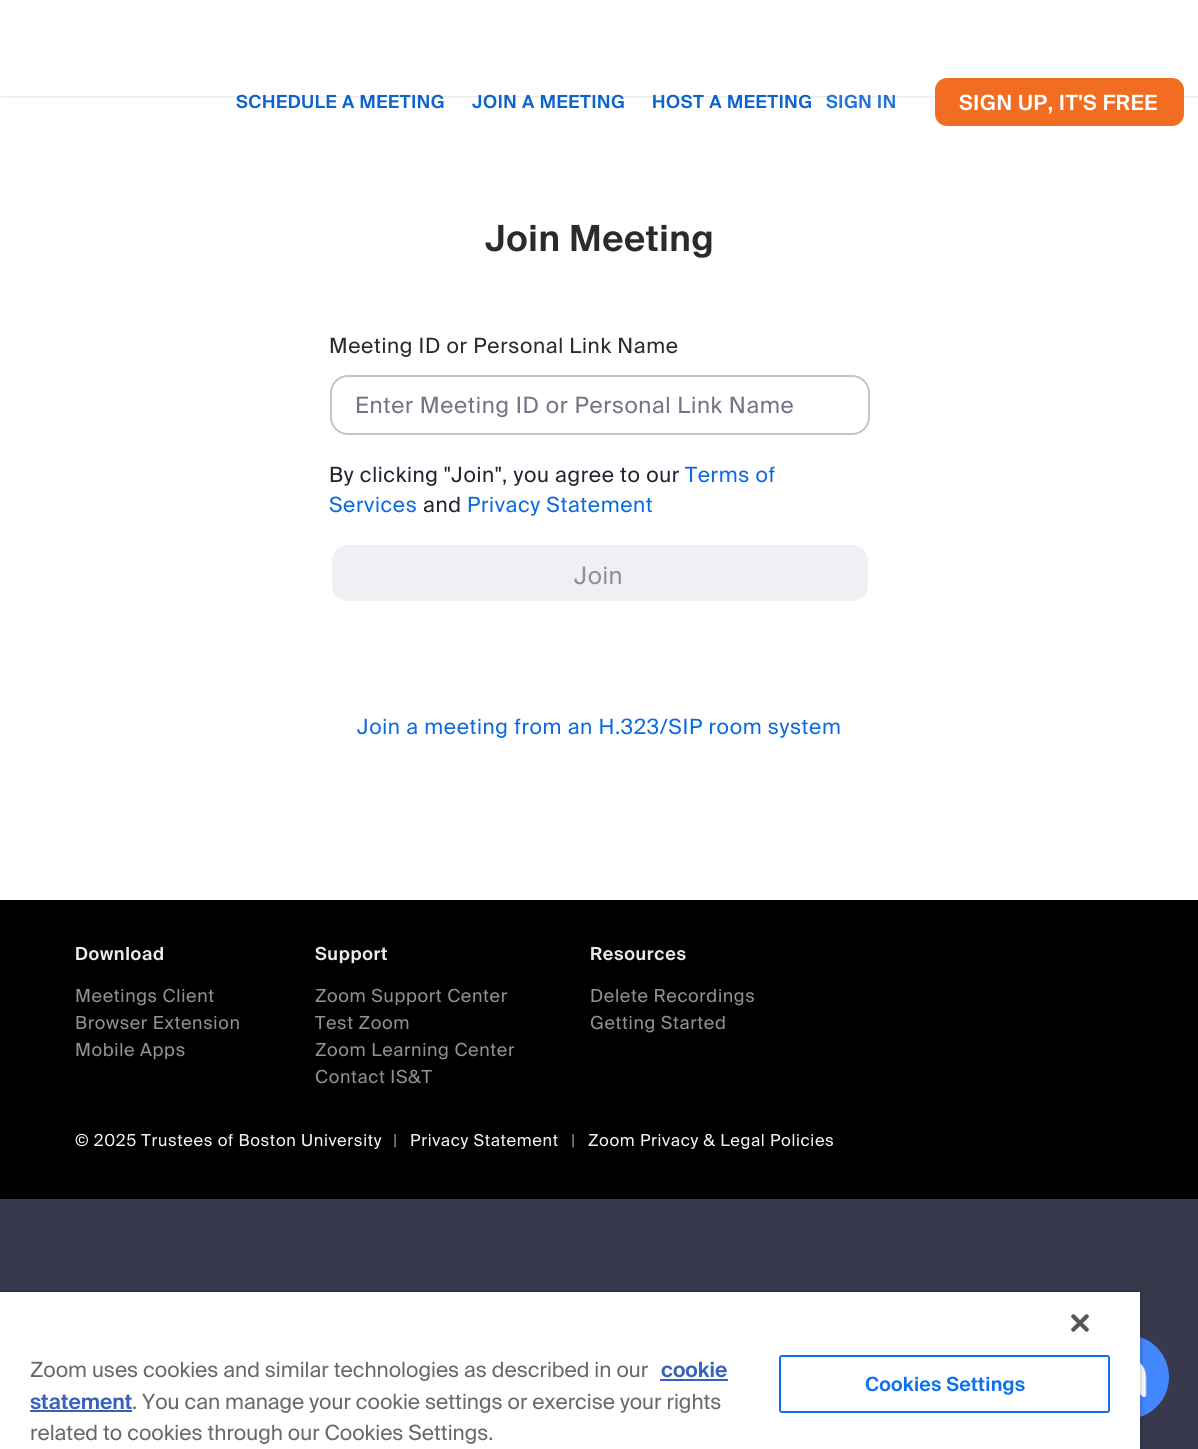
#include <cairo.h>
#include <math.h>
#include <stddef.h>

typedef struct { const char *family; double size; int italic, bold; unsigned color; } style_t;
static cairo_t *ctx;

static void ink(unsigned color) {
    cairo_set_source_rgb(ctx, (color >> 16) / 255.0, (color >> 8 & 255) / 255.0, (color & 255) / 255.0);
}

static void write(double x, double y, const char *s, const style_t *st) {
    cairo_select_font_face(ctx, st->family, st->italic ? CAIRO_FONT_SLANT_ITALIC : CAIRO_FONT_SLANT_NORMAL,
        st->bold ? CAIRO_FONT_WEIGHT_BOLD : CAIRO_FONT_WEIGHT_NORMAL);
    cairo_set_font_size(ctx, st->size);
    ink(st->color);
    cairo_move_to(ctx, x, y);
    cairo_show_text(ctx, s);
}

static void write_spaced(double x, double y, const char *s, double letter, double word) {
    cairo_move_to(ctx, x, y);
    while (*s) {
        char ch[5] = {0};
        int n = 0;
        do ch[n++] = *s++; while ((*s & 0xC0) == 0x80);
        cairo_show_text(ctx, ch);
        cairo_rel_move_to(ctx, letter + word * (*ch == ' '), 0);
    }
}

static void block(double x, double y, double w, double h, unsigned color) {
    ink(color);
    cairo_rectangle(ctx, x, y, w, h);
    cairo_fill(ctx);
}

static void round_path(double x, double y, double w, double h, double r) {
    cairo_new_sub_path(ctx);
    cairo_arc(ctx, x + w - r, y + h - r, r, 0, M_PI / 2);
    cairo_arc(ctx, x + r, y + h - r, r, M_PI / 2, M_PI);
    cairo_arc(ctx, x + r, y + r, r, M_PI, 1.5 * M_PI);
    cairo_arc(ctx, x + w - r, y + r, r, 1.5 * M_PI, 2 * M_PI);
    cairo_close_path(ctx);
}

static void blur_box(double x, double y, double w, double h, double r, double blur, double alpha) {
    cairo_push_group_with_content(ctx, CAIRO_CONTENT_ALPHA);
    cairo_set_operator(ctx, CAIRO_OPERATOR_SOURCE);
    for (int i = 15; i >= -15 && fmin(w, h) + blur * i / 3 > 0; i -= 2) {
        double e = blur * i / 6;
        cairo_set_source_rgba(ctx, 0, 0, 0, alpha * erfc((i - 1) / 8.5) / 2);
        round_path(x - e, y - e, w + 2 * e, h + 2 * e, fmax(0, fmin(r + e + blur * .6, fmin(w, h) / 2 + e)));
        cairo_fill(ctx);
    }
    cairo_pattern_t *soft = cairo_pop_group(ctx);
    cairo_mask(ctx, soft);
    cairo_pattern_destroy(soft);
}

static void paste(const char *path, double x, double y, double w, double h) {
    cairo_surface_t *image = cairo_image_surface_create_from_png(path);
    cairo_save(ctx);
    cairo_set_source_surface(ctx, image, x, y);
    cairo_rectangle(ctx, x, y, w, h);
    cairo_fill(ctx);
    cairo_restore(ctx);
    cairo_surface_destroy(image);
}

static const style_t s1 = {"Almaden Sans", 21, 0, 0, 0x696969};
static const style_t s2 = {"Almaden Sans SemiBold", 21, 0, 0, 0x3860be};

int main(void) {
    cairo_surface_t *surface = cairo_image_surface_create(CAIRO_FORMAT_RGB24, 1198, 1449);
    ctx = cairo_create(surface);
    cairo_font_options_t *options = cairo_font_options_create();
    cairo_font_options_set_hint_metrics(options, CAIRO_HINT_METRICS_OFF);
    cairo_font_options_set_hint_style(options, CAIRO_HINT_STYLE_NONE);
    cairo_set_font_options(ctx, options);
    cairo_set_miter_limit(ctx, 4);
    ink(0x39394d);
    cairo_paint(ctx);
    block(0, 0, 1198, 900, 0xffffff);
    cairo_save(ctx);
    cairo_rectangle(ctx, 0, 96, 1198, 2);
    cairo_clip(ctx);
    ink(0x000000);
    blur_box(0, 0, 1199, 96, 0, 1.5, 0.2);
    cairo_restore(ctx);
    cairo_select_font_face(ctx, "Almaden Sans SemiBold", CAIRO_FONT_SLANT_NORMAL, CAIRO_FONT_WEIGHT_NORMAL);
    cairo_set_font_size(ctx, 18);
    ink(0x0c63ce);
    write_spaced(236, 108, "SCHEDULE A MEETING", 0.65, 0);
    write_spaced(472, 108, "JOIN A MEETING", 0.65, 0);
    write_spaced(652, 108, "HOST A MEETING", 0.65, 0);
    ink(0x2073d9);
    write_spaced(826, 108, "SIGN IN", 0.65, 0);
    ink(0xf26d21);
    round_path(936, 79, 247, 46, 11);
    cairo_fill_preserve(ctx);
    cairo_stroke(ctx);
    cairo_set_font_size(ctx, 21);
    ink(0xffffff);
    write_spaced(959, 110, "SIGN UP, IT'S FREE", 0.65, 0);
    cairo_set_font_size(ctx, 36);
    ink(0x2a2b2d);
    write_spaced(485, 251, "Join Meeting", 0.65, 0);
    cairo_select_font_face(ctx, "Almaden Sans", CAIRO_FONT_SLANT_NORMAL, CAIRO_FONT_WEIGHT_NORMAL);
    cairo_set_font_size(ctx, 21);
    write_spaced(329, 353, "Meeting ID or Personal Link Name", 0.65, 0);
    round_path(331, 376, 538, 58, 17);
    ink(0xc1c6ce);
    cairo_stroke(ctx);
    cairo_set_font_size(ctx, 22.5);
    ink(0x747487);
    write_spaced(355, 413, "Enter Meeting ID or Personal Link Name", 0.7, 0);
    cairo_set_font_size(ctx, 21);
    ink(0x232333);
    write_spaced(329, 482, "By clicking \"Join\", you agree to our", 0.65, 0);
    ink(0x0d6bde);
    write_spaced(685, 482, "Terms of", 0.65, 0);
    write_spaced(329, 512, "Services", 0.65, 0);
    ink(0x232333);
    write_spaced(423, 512, "and", 0.65, 0);
    ink(0x0d6bde);
    write_spaced(467, 512, "Privacy Statement", 0.65, 0);
    ink(0xefeff4);
    round_path(331, 544, 538, 58, 17);
    cairo_fill_preserve(ctx);
    ink(0xffffff);
    cairo_stroke(ctx);
    cairo_set_font_size(ctx, 24);
    ink(0x919191);
    write_spaced(574, 584, "Join", 0.5, 0);
    cairo_set_font_size(ctx, 21);
    ink(0x0d6bde);
    write_spaced(357, 734, "Join a meeting from an H.323/SIP room system", 0.65, 0);
    block(0, 900, 1198, 299, 0x000000);
    cairo_select_font_face(ctx, "Almaden Sans SemiBold", CAIRO_FONT_SLANT_NORMAL, CAIRO_FONT_WEIGHT_NORMAL);
    cairo_set_font_size(ctx, 18);
    ink(0xeaeaea);
    write_spaced(75, 960, "Download", 0.65, 0);
    cairo_select_font_face(ctx, "Almaden Sans", CAIRO_FONT_SLANT_NORMAL, CAIRO_FONT_WEIGHT_NORMAL);
    ink(0x919191);
    write_spaced(75, 1002, "Meetings Client", 0.65, 0);
    write_spaced(75, 1029, "Browser Extension", 0.65, 0);
    write_spaced(75, 1056, "Mobile Apps", 0.65, 0);
    cairo_select_font_face(ctx, "Almaden Sans SemiBold", CAIRO_FONT_SLANT_NORMAL, CAIRO_FONT_WEIGHT_NORMAL);
    ink(0xeaeaea);
    write_spaced(315, 960, "Support", 0.65, 0);
    cairo_select_font_face(ctx, "Almaden Sans", CAIRO_FONT_SLANT_NORMAL, CAIRO_FONT_WEIGHT_NORMAL);
    ink(0x919191);
    write_spaced(315, 1002, "Zoom Support Center", 0.65, 0);
    write_spaced(315, 1029, "Test Zoom", 0.65, 0);
    write_spaced(315, 1056, "Zoom Learning Center", 0.65, 0);
    write_spaced(315, 1083, "Contact IS&T", 0.65, 0);
    cairo_select_font_face(ctx, "Almaden Sans SemiBold", CAIRO_FONT_SLANT_NORMAL, CAIRO_FONT_WEIGHT_NORMAL);
    ink(0xeaeaea);
    write_spaced(590, 960, "Resources", 0.65, 0);
    cairo_select_font_face(ctx, "Almaden Sans", CAIRO_FONT_SLANT_NORMAL, CAIRO_FONT_WEIGHT_NORMAL);
    ink(0x919191);
    write_spaced(590, 1002, "Delete Recordings", 0.65, 0);
    write_spaced(590, 1029, "Getting Started", 0.65, 0);
    cairo_set_font_size(ctx, 16.5);
    ink(0xf5f5f5);
    write_spaced(75, 1146, "© 2025 Trustees of Boston University", 0.65, 0);
    ink(0x919191);
    write_spaced(393, 1146, "|", 0.65, 0);
    ink(0xf5f5f5);
    write_spaced(410, 1146, "Privacy Statement", 0.65, 0);
    ink(0x919191);
    write_spaced(571, 1146, "|", 0.65, 0);
    ink(0xf5f5f5);
    write_spaced(588, 1146, "Zoom Privacy & Legal Policies", 0.65, 0);
    ink(0x4488ff);
    cairo_new_path(ctx);
    cairo_arc(ctx, 1127, 1377, 42, 0, 2 * M_PI);
    cairo_fill(ctx);
    paste("pic2.png", 1140, 1362, 7, 36);
    ink(0x000000);
    blur_box(0, 1292, 1140, 157, 0, 3, 0.35);
    block(0, 1292, 1140, 157, 0xffffff);
    paste("pic1.png", 1071, 1314, 18, 18);
    write(30, 1377, "Zoom uses cookies and similar technologies as described in our", &s1);
    write(661, 1377, "cookie", &s2);
    block(660, 1379, 68, 2, 0x3860be);
    write(30, 1409, "statement", &s2);
    block(30, 1410, 102, 2, 0x3860be);
    write(132, 1409, ". You can manage your cookie settings or exercise your rights", &s1);
    write(30, 1440, "related to cookies through our Cookies Settings.", &s1);
    round_path(780, 1356, 329, 56, 2);
    ink(0x0e71eb);
    cairo_stroke(ctx);
    cairo_select_font_face(ctx, "Almaden Sans SemiBold", CAIRO_FONT_SLANT_NORMAL, CAIRO_FONT_WEIGHT_NORMAL);
    cairo_set_font_size(ctx, 19.5);
    write_spaced(865, 1391, "Cookies Settings", 0.25, 0);
    cairo_surface_write_to_png(surface, "screenshot.png");
    cairo_font_options_destroy(options);
    cairo_destroy(ctx);
    cairo_surface_destroy(surface);
    return 0;
}
